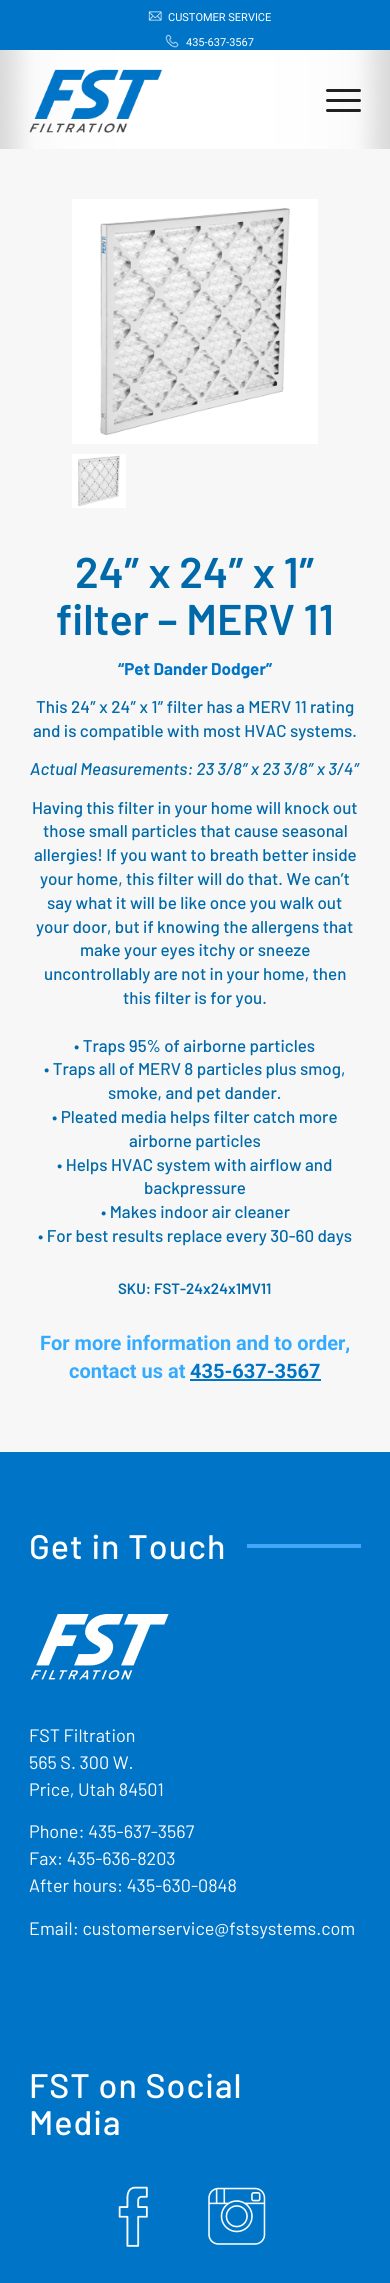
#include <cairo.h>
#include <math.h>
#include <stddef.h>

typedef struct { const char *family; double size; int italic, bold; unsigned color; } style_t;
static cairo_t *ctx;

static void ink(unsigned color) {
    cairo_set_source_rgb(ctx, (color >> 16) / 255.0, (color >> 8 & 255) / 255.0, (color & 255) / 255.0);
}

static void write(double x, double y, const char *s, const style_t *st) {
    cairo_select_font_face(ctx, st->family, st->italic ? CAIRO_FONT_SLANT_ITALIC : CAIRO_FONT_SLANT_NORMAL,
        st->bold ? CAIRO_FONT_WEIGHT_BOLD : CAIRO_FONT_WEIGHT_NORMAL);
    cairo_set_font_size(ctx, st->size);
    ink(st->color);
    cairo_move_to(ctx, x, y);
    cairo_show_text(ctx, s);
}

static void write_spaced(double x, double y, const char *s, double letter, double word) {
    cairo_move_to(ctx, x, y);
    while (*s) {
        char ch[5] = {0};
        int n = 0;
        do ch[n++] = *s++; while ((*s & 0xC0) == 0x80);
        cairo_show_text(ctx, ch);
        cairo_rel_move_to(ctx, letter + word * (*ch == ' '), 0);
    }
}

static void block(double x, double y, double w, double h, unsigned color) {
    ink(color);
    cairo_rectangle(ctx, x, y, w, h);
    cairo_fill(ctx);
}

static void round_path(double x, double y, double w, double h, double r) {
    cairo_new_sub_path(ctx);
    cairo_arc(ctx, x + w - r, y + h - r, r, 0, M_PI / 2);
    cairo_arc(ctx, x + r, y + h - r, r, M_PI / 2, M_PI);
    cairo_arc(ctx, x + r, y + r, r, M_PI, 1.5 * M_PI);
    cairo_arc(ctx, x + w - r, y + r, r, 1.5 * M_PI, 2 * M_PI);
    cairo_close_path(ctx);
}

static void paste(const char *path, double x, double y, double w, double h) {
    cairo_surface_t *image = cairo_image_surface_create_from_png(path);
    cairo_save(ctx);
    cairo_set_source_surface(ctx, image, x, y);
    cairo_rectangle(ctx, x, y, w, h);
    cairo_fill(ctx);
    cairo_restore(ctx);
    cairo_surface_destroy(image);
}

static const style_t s1 = {"Roboto", 11, 0, 0, 0xffffff};
static const style_t s2 = {"Barlow SemiBold", 43, 0, 0, 0x0069aa};
static const style_t s3 = {"Barlow", 17, 0, 1, 0x0074c7};
static const style_t s4 = {"Barlow Medium", 17, 0, 0, 0x0069aa};
static const style_t s5 = {"Barlow Medium", 17, 1, 0, 0x0069aa};
static const style_t s6 = {"Barlow SemiBold", 15, 0, 0, 0x0069aa};
static const style_t s7 = {"Roboto", 20, 0, 1, 0x36abfd};
static const style_t s8 = {"Roboto", 20, 0, 1, 0x0074c7};
static const style_t s9 = {"Barlow", 18, 0, 0, 0xffffff};

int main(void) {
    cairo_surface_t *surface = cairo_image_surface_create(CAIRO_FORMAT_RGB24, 390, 2283);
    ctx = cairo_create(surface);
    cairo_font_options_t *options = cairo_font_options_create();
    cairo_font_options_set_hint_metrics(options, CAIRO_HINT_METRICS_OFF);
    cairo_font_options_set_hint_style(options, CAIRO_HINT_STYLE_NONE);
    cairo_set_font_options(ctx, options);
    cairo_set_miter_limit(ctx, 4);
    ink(0x0074c7);
    cairo_paint(ctx);
    paste("pic1.png", 148, 11, 14, 10);
    write(168, 21, "CUSTOMER SERVICE", &s1);
    paste("pic2.png", 165, 34, 14, 14);
    write(186, 46, "435-637-3567", &s1);
    paste("pic3.png", 0, 50, 390, 99);
    paste("pic4.png", 29, 69, 133, 64);
    ink(0x212121);
    round_path(326, 99, 35, 3, 1.5);
    cairo_fill(ctx);
    round_path(326, 89, 35, 3, 1.5);
    cairo_fill(ctx);
    round_path(326, 109, 35, 3, 1.5);
    cairo_fill(ctx);
    block(0, 149, 390, 1303, 0xf7f7f7);
    block(72, 199, 246, 245, 0xffffff);
    paste("pic5.png", 100, 208, 190, 227);
    block(72, 454, 54, 54, 0xffffff);
    paste("pic6.png", 78, 455, 42, 52);
    write(75, 588, "24″ x 24″ x 1″", &s2);
    write(56, 635, "filter – MERV 11", &s2);
    write(118, 675, "“Pet Dander Dodger”", &s3);
    write(36, 713, "This 24″ x 24″ x 1″ filter has a MERV 11 rating", &s4);
    write(33, 737, "and is compatible with most HVAC systems.", &s4);
    write(30, 775, "Actual Measurements: 23 3/8″ x 23 3/8″ x 3/4″", &s5);
    write(32, 814, "Having this filter in your home will knock out", &s4);
    write(43, 837, "those small particles that cause seasonal", &s4);
    write(34, 861, "allergies! If you want to breath better inside", &s4);
    write(40, 885, "your home, this filter will do that. We can’t", &s4);
    write(47, 909, "say what it will be like once you walk out", &s4);
    write(36, 933, "your door, but if knowing the allergens that", &s4);
    write(80, 956, "make your eyes itchy or sneeze", &s4);
    write(44, 980, "uncontrollably are not in your home, then", &s4);
    write(123, 1004, "this filter is for you.", &s4);
    write(74, 1052, "• Traps 95% of airborne particles", &s4);
    write(44, 1075, "• Traps all of MERV 8 particles plus smog,", &s4);
    write(108, 1099, "smoke, and pet dander.", &s4);
    write(52, 1123, "• Pleated media helps filter catch more", &s4);
    write(129, 1147, "airborne particles", &s4);
    write(57, 1171, "• Helps HVAC system with airflow and", &s4);
    write(144, 1194, "backpressure", &s4);
    write(101, 1218, "• Makes indoor air cleaner", &s4);
    write(38, 1242, "• For best results replace every 30-60 days", &s4);
    write(118, 1294, "SKU: FST-24x24x1MV11", &s6);
    write(40, 1350, "For more information and to order,", &s7);
    write(69, 1378, "contact us at", &s7);
    write(190, 1378, "435-637-3567", &s8);
    block(190, 1379, 131, 2, 0x0074c7);
    cairo_select_font_face(ctx, "Barlow Medium", CAIRO_FONT_SLANT_NORMAL, CAIRO_FONT_WEIGHT_NORMAL);
    cairo_set_font_size(ctx, 34);
    ink(0xffffff);
    write_spaced(29, 1559, "Get in Touch", 1, 0);
    block(247, 1544, 114, 4, 0x43a7f7);
    paste("pic7.png", 31, 1614, 138, 66);
    write(29, 1742, "FST Filtration", &s9);
    write(29, 1769, "565 S. 300 W.", &s9);
    write(29, 1796, "Price, Utah 84501", &s9);
    write(29, 1838, "Phone: 435-637-3567", &s9);
    write(29, 1865, "Fax: 435-636-8203", &s9);
    write(29, 1892, "After hours: 435-630-0848", &s9);
    write(29, 1935, "Email: customerservice@fstsystems.com", &s9);
    cairo_select_font_face(ctx, "Barlow Medium", CAIRO_FONT_SLANT_NORMAL, CAIRO_FONT_WEIGHT_NORMAL);
    cairo_set_font_size(ctx, 34);
    write_spaced(29, 2098, "FST on Social", 1, 0);
    write_spaced(29, 2135, "Media", 1, 0);
    paste("pic8.png", 118, 2186, 30, 61);
    paste("pic9.png", 208, 2187, 58, 58);
    cairo_surface_write_to_png(surface, "screenshot.png");
    cairo_font_options_destroy(options);
    cairo_destroy(ctx);
    cairo_surface_destroy(surface);
    return 0;
}
